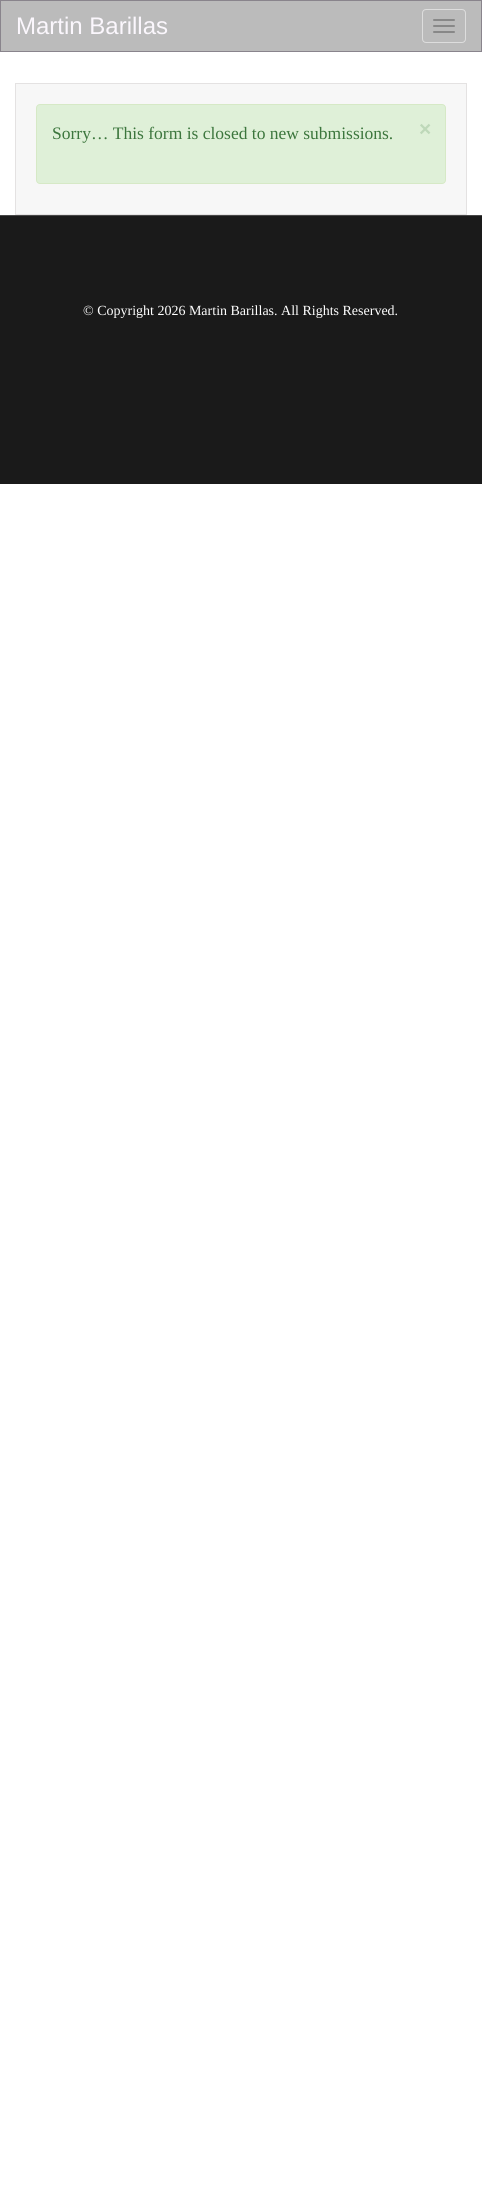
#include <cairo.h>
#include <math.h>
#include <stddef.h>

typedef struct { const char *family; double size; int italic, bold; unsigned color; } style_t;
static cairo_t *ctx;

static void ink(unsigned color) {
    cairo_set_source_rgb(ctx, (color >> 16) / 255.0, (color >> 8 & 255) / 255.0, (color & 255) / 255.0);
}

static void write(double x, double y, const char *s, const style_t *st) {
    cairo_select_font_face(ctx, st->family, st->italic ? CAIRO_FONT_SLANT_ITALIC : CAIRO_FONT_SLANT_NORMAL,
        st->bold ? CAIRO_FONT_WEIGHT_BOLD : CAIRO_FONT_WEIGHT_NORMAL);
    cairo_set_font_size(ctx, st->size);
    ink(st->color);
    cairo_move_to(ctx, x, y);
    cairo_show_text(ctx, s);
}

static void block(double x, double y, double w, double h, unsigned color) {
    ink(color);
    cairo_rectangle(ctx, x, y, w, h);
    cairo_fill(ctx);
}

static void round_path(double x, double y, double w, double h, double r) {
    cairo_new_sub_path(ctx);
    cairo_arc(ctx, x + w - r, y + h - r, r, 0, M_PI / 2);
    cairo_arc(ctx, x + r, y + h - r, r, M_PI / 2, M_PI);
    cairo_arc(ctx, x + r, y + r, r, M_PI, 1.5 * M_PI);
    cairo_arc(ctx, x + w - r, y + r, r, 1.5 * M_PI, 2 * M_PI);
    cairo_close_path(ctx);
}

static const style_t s1 = {"Liberation Sans", 24, 0, 0, 0xfbf7fd};
static const style_t s2 = {"Liberation Serif", 17.5, 0, 0, 0x3c763d};
static const style_t s3 = {"Liberation Sans", 21, 0, 1, 0xbed8b9};
static const style_t s4 = {"Liberation Serif", 14, 0, 0, 0xffffff};

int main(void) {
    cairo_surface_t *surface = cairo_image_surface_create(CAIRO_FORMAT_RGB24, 482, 2192);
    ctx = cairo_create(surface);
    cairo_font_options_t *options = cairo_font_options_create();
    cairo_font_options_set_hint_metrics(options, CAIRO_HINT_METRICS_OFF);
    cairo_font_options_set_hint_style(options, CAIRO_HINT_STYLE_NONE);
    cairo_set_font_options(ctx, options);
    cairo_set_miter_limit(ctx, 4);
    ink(0xffffff);
    cairo_paint(ctx);
    ink(0xbbbbbb);
    cairo_rectangle(ctx, 0.5, 0.5, 481, 51);
    cairo_fill_preserve(ctx);
    ink(0x89848c);
    cairo_set_line_width(ctx, 1);
    cairo_stroke(ctx);
    write(16, 34, "Martin Barillas", &s1);
    round_path(422.5, 9.5, 43, 33, 3.5);
    ink(0xdddddd);
    cairo_stroke(ctx);
    ink(0x888888);
    round_path(433, 19, 22, 2, 1);
    cairo_fill(ctx);
    round_path(433, 25, 22, 2, 1);
    cairo_fill(ctx);
    round_path(433, 31, 22, 2, 1);
    cairo_fill(ctx);
    ink(0xf7f7f7);
    cairo_rectangle(ctx, 15.5, 83.5, 451, 131);
    cairo_fill_preserve(ctx);
    ink(0xe4e2e2);
    cairo_stroke(ctx);
    ink(0xdff0d8);
    round_path(36.5, 104.5, 409, 79, 3.5);
    cairo_fill_preserve(ctx);
    ink(0xd6e9c6);
    cairo_stroke(ctx);
    write(52, 139, "Sorry… This form is closed to new submissions.", &s2);
    write(419, 136, "×", &s3);
    block(0, 216, 482, 268, 0x1a1a1a);
    block(0, 215, 482, 1, 0x474747);
    write(83, 315, "© Copyright 2026 Martin Barillas. All Rights Reserved.", &s4);
    cairo_surface_write_to_png(surface, "screenshot.png");
    cairo_font_options_destroy(options);
    cairo_destroy(ctx);
    cairo_surface_destroy(surface);
    return 0;
}
